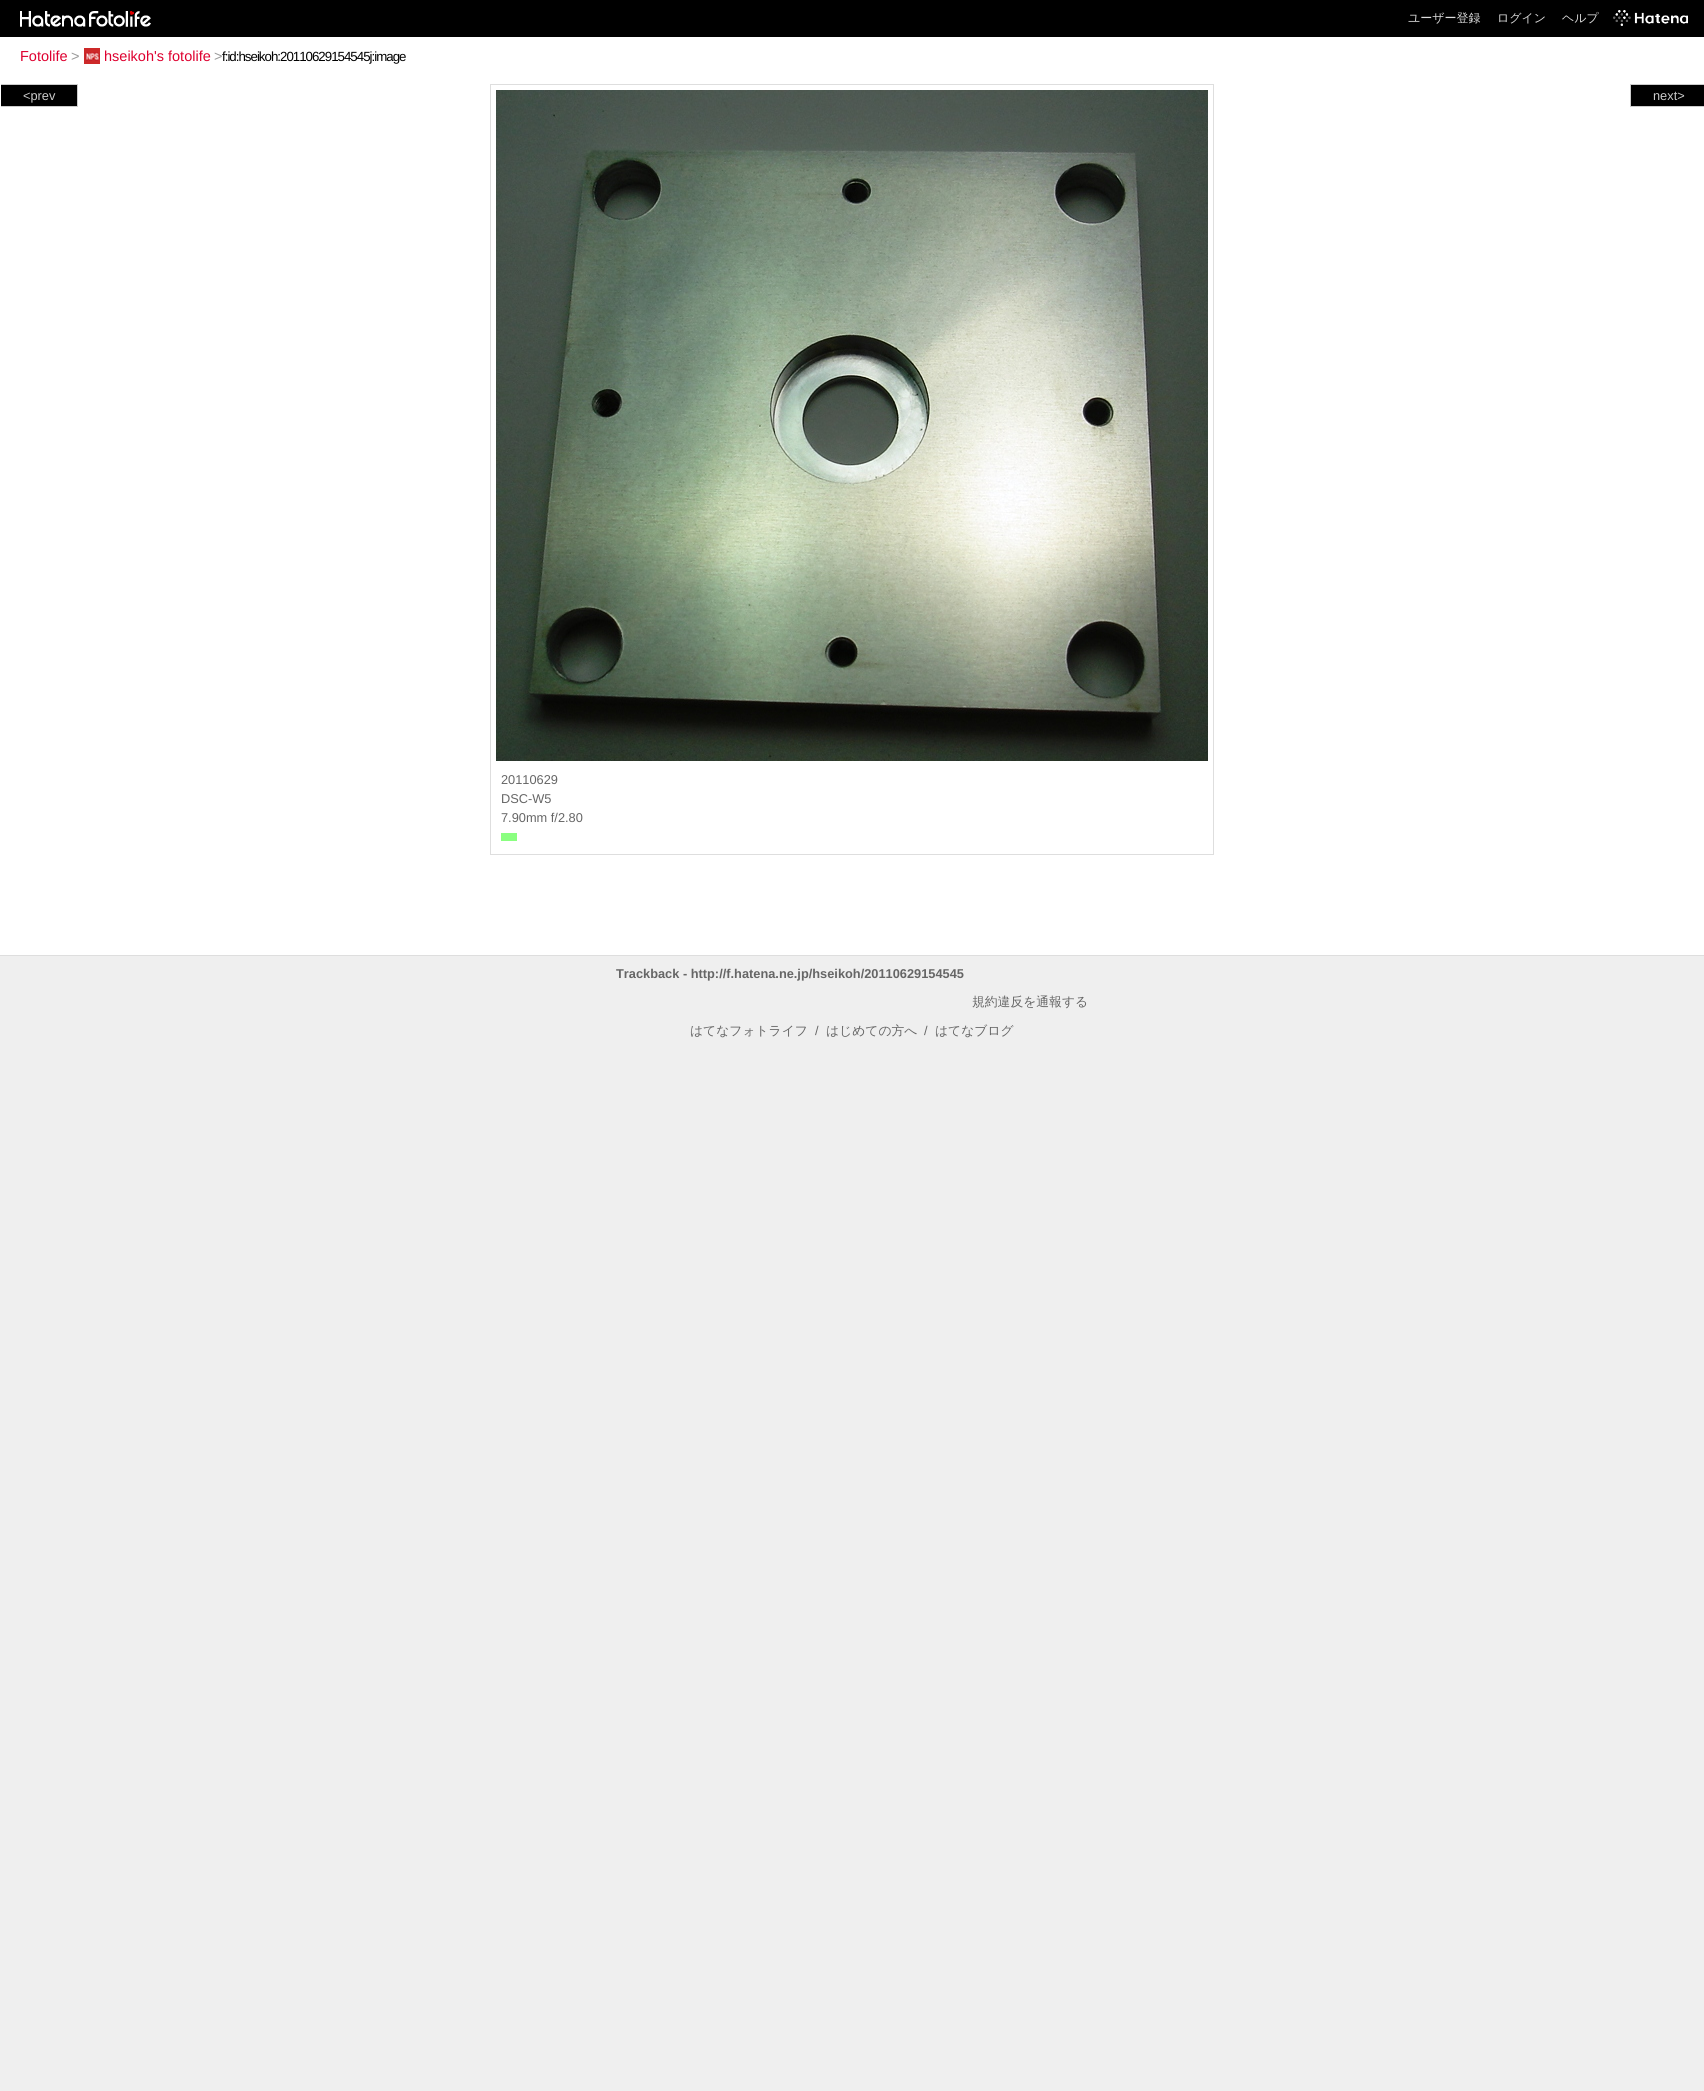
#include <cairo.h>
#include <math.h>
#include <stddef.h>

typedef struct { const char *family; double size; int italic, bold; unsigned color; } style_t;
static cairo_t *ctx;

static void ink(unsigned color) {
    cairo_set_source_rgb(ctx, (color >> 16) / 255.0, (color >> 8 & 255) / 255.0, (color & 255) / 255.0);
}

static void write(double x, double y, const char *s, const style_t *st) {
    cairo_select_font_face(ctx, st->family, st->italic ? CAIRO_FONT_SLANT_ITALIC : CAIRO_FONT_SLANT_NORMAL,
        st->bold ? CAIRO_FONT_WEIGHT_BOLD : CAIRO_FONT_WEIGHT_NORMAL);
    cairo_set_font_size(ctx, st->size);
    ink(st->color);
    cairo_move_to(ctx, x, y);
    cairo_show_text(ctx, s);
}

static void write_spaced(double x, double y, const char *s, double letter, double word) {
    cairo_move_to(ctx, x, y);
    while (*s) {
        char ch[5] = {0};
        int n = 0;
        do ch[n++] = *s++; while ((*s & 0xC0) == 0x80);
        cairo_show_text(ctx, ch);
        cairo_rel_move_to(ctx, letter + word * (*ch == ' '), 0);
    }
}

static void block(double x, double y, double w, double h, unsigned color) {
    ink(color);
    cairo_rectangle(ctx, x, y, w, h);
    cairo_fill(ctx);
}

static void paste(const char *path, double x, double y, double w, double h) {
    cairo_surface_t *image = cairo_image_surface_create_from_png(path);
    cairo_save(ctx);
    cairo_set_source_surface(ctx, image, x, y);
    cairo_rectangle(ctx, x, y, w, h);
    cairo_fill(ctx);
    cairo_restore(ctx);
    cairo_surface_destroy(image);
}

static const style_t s1 = {"WenQuanYi Zen Hei Medium", 12, 0, 0, 0xdddddd};
static const style_t s2 = {"Liberation Sans", 14.5, 0, 0, 0xde002f};
static const style_t s3 = {"Liberation Sans", 14.5, 0, 0, 0x999999};
static const style_t s4 = {"Liberation Sans", 12.8, 0, 0, 0xcccccc};
static const style_t s5 = {"Liberation Sans", 12.8, 0, 0, 0x666666};
static const style_t s6 = {"Liberation Sans", 12.8, 0, 1, 0x666666};
static const style_t s7 = {"WenQuanYi Zen Hei Medium", 12.8, 0, 0, 0x666666};

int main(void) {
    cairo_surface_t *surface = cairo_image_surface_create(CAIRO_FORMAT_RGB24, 1704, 2091);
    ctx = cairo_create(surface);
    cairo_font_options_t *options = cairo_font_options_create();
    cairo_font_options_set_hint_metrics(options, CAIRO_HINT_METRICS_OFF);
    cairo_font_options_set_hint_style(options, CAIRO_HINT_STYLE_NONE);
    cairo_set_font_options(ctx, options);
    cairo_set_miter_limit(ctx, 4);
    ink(0xefefef);
    cairo_paint(ctx);
    block(0, 0, 1704, 37, 0x000000);
    paste("pic1.png", 20, 11, 66, 16);
    paste("pic2.png", 89, 11, 62, 16);
    write(1408, 22, "ユーザー登録", &s1);
    write(1497, 22, "ログイン", &s1);
    write(1562, 22, "ヘルプ", &s1);
    paste("pic3.png", 1613, 10, 75, 16);
    block(0, 37, 1704, 918, 0xffffff);
    write(20, 61, "Fotolife", &s2);
    write(71, 61, ">", &s3);
    paste("pic4.png", 84, 48, 16, 16);
    write(104, 61, "hseikoh's fotolife", &s2);
    write(214, 61, ">", &s3);
    cairo_set_font_size(ctx, 13.3);
    ink(0x000000);
    write_spaced(222, 61, "f:id:hseikoh:20110629154545j:image", -1, 0);
    block(0, 955, 1704, 1, 0xdedede);
    block(1, 85, 76, 21, 0x000000);
    block(1, 84, 77, 1, 0xcccccc);
    block(77, 84, 1, 23, 0xcccccc);
    block(1, 106, 77, 1, 0xcccccc);
    write(23, 100, "<prev", &s4);
    block(1631, 85, 73, 21, 0x000000);
    block(1630, 84, 74, 1, 0xcccccc);
    block(1630, 106, 74, 1, 0xcccccc);
    block(1630, 84, 1, 23, 0xcccccc);
    write(1653, 100, "next>", &s4);
    cairo_rectangle(ctx, 490.5, 84.5, 723, 770);
    ink(0xdedede);
    cairo_set_line_width(ctx, 1);
    cairo_stroke(ctx);
    paste("pic5.png", 496, 90, 712, 671);
    write(501, 784, "20110629", &s5);
    write(501, 803, "DSC-W5", &s5);
    write(501, 822, "7.90mm f/2.80", &s5);
    block(501, 833, 16, 8, 0x8aff80);
    write(616, 978, "Trackback - http://f.hatena.ne.jp/hseikoh/20110629154545", &s6);
    write(972, 1006, "規約違反を通報する", &s7);
    write(690, 1035, "はてなフォトライフ", &s7);
    write(815, 1035, "/", &s5);
    write(826, 1035, "はじめての方へ", &s7);
    write(924, 1035, "/", &s5);
    write(935, 1035, "はてなブログ", &s7);
    cairo_surface_write_to_png(surface, "screenshot.png");
    cairo_font_options_destroy(options);
    cairo_destroy(ctx);
    cairo_surface_destroy(surface);
    return 0;
}
